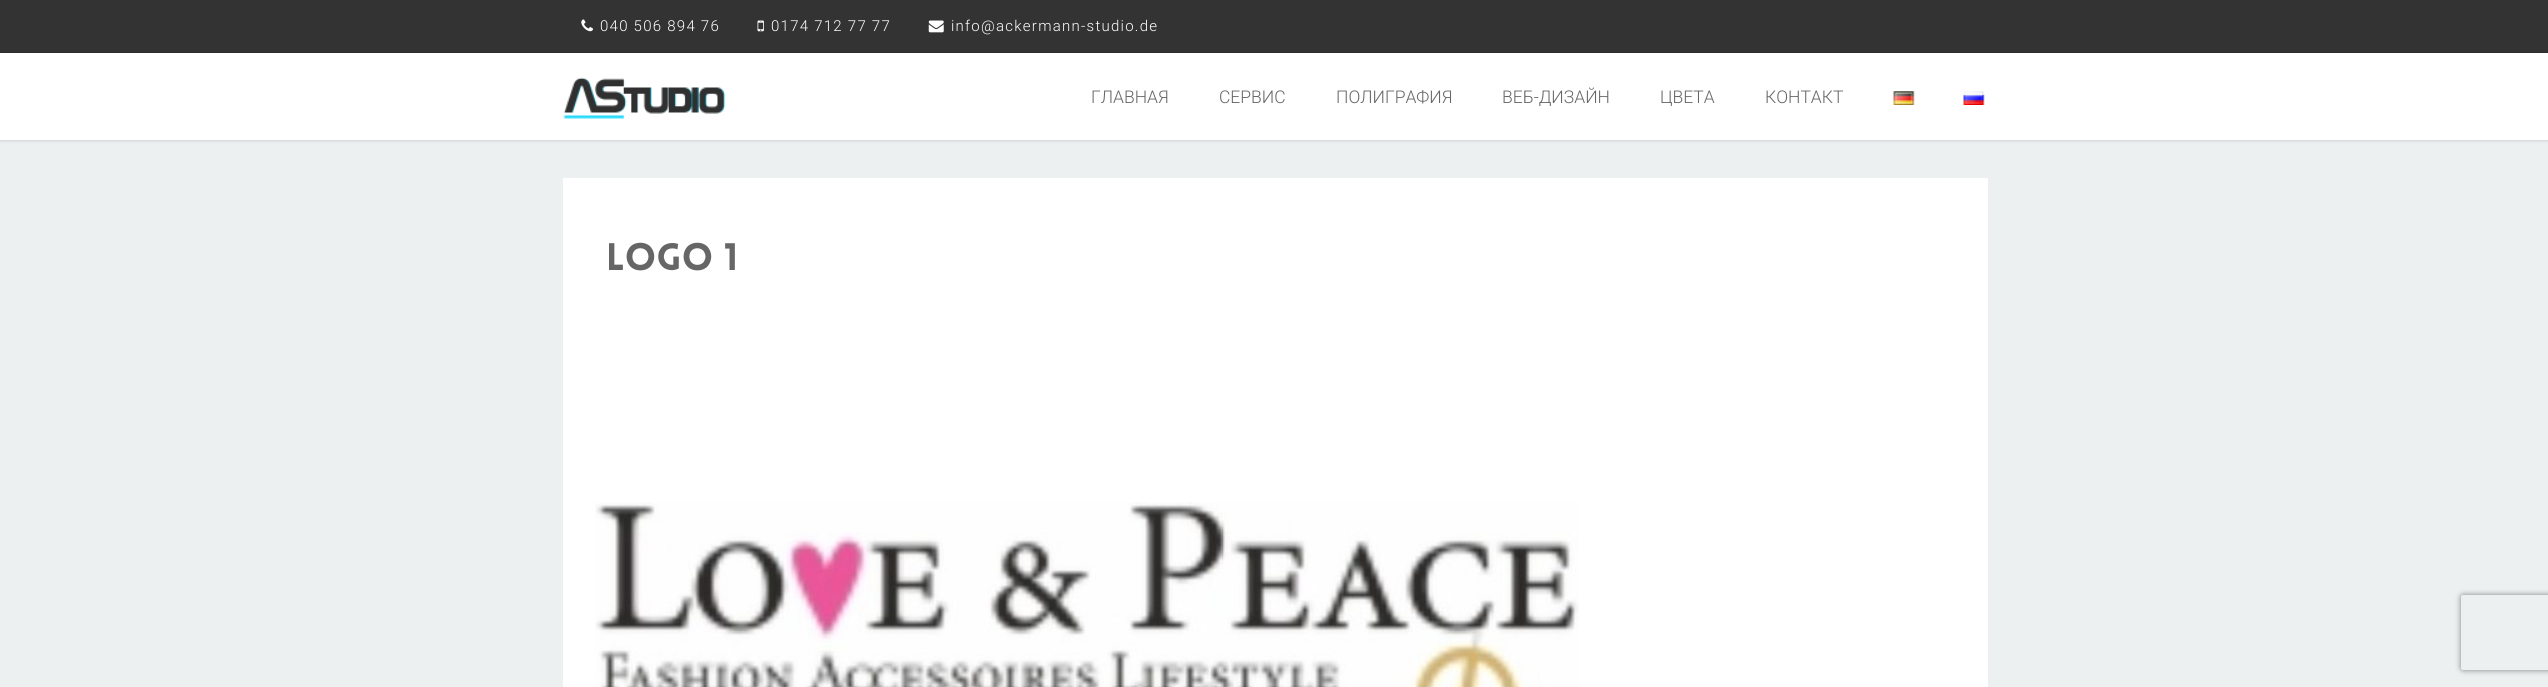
#include <cairo.h>
#include <math.h>
#include <stddef.h>

typedef struct { const char *family; double size; int italic, bold; unsigned color; } style_t;
static cairo_t *ctx;

static void ink(unsigned color) {
    cairo_set_source_rgb(ctx, (color >> 16) / 255.0, (color >> 8 & 255) / 255.0, (color & 255) / 255.0);
}

static void write(double x, double y, const char *s, const style_t *st) {
    cairo_select_font_face(ctx, st->family, st->italic ? CAIRO_FONT_SLANT_ITALIC : CAIRO_FONT_SLANT_NORMAL,
        st->bold ? CAIRO_FONT_WEIGHT_BOLD : CAIRO_FONT_WEIGHT_NORMAL);
    cairo_set_font_size(ctx, st->size);
    ink(st->color);
    cairo_move_to(ctx, x, y);
    cairo_show_text(ctx, s);
}

static void write_spaced(double x, double y, const char *s, double letter, double word) {
    cairo_move_to(ctx, x, y);
    while (*s) {
        char ch[5] = {0};
        int n = 0;
        do ch[n++] = *s++; while ((*s & 0xC0) == 0x80);
        cairo_show_text(ctx, ch);
        cairo_rel_move_to(ctx, letter + word * (*ch == ' '), 0);
    }
}

static void block(double x, double y, double w, double h, unsigned color) {
    ink(color);
    cairo_rectangle(ctx, x, y, w, h);
    cairo_fill(ctx);
}

static void round_path(double x, double y, double w, double h, double r) {
    cairo_new_sub_path(ctx);
    cairo_arc(ctx, x + w - r, y + h - r, r, 0, M_PI / 2);
    cairo_arc(ctx, x + r, y + h - r, r, M_PI / 2, M_PI);
    cairo_arc(ctx, x + r, y + r, r, M_PI, 1.5 * M_PI);
    cairo_arc(ctx, x + w - r, y + r, r, 1.5 * M_PI, 2 * M_PI);
    cairo_close_path(ctx);
}

static void blur_box(double x, double y, double w, double h, double r, double blur, double alpha) {
    cairo_push_group_with_content(ctx, CAIRO_CONTENT_ALPHA);
    cairo_set_operator(ctx, CAIRO_OPERATOR_SOURCE);
    for (int i = 15; i >= -15 && fmin(w, h) + blur * i / 3 > 0; i -= 2) {
        double e = blur * i / 6;
        cairo_set_source_rgba(ctx, 0, 0, 0, alpha * erfc((i - 1) / 8.5) / 2);
        round_path(x - e, y - e, w + 2 * e, h + 2 * e, fmax(0, fmin(r + e + blur * .6, fmin(w, h) / 2 + e)));
        cairo_fill(ctx);
    }
    cairo_pattern_t *soft = cairo_pop_group(ctx);
    cairo_mask(ctx, soft);
    cairo_pattern_destroy(soft);
}

static void paste(const char *path, double x, double y, double w, double h) {
    cairo_surface_t *image = cairo_image_surface_create_from_png(path);
    cairo_save(ctx);
    cairo_set_source_surface(ctx, image, x, y);
    cairo_rectangle(ctx, x, y, w, h);
    cairo_fill(ctx);
    cairo_restore(ctx);
    cairo_surface_destroy(image);
}

static const style_t s1 = {"Roboto Light", 17.5, 0, 0, 0x666666};
static const style_t s2 = {"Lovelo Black", 37.5, 0, 0, 0x666666};

int main(void) {
    cairo_surface_t *surface = cairo_image_surface_create(CAIRO_FORMAT_RGB24, 2548, 687);
    ctx = cairo_create(surface);
    cairo_font_options_t *options = cairo_font_options_create();
    cairo_font_options_set_hint_metrics(options, CAIRO_HINT_METRICS_OFF);
    cairo_font_options_set_hint_style(options, CAIRO_HINT_STYLE_NONE);
    cairo_set_font_options(ctx, options);
    cairo_set_miter_limit(ctx, 4);
    ink(0xecf0f1);
    cairo_paint(ctx);
    block(0, 0, 2548, 53, 0x333333);
    paste("pic1.png", 581, 19, 12, 13);
    cairo_select_font_face(ctx, "Roboto Light", CAIRO_FONT_SLANT_NORMAL, CAIRO_FONT_WEIGHT_NORMAL);
    cairo_set_font_size(ctx, 15);
    ink(0xffffff);
    write_spaced(600, 31, "040 506 894 76", 1.25, 0);
    paste("pic2.png", 757, 20, 7, 12);
    write_spaced(771, 31, "0174 712 77 77", 1.25, 0);
    paste("pic3.png", 928, 20, 16, 13);
    write_spaced(951, 31, "info@ackermann-studio.de", 1.25, 0);
    ink(0x000000);
    blur_box(0, 53, 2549, 87, 0, 2, 0.2);
    block(0, 53, 2548, 87, 0xffffff);
    paste("pic4.png", 563, 77, 162, 42);
    write(1091, 103, "ГЛАВНАЯ", &s1);
    write(1219, 103, "СЕРВИС", &s1);
    write(1336, 103, "ПОЛИГРАФИЯ", &s1);
    write(1502, 103, "ВЕБ-ДИЗАЙН", &s1);
    write(1660, 103, "ЦВЕТА", &s1);
    write(1765, 103, "КОНТАКТ", &s1);
    paste("pic5.png", 1893, 91, 22, 14);
    paste("pic6.png", 1963, 91, 22, 14);
    block(563, 178, 1425, 509, 0xffffff);
    write(606, 270, "Logo 1", &s2);
    paste("pic7.png", 595, 502, 984, 185);
    cairo_save(ctx);
    cairo_set_fill_rule(ctx, CAIRO_FILL_RULE_EVEN_ODD);
    cairo_new_path(ctx);
    cairo_move_to(ctx, 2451, 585);
    cairo_line_to(ctx, 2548, 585);
    cairo_line_to(ctx, 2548, 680);
    cairo_line_to(ctx, 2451, 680);
    cairo_close_path(ctx);
    cairo_move_to(ctx, 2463.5, 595);
    cairo_line_to(ctx, 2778.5, 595);
    cairo_curve_to(ctx, 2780, 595, 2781, 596, 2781, 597.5);
    cairo_line_to(ctx, 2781, 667.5);
    cairo_curve_to(ctx, 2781, 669, 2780, 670, 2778.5, 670);
    cairo_line_to(ctx, 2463.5, 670);
    cairo_curve_to(ctx, 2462, 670, 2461, 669, 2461, 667.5);
    cairo_line_to(ctx, 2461, 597.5);
    cairo_curve_to(ctx, 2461, 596, 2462, 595, 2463.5, 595);
    cairo_close_path(ctx);
    cairo_clip(ctx);
    ink(0x808080);
    blur_box(2461, 595, 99, 75, 2.5, 3, 1);
    cairo_restore(ctx);
    cairo_surface_write_to_png(surface, "screenshot.png");
    cairo_font_options_destroy(options);
    cairo_destroy(ctx);
    cairo_surface_destroy(surface);
    return 0;
}
